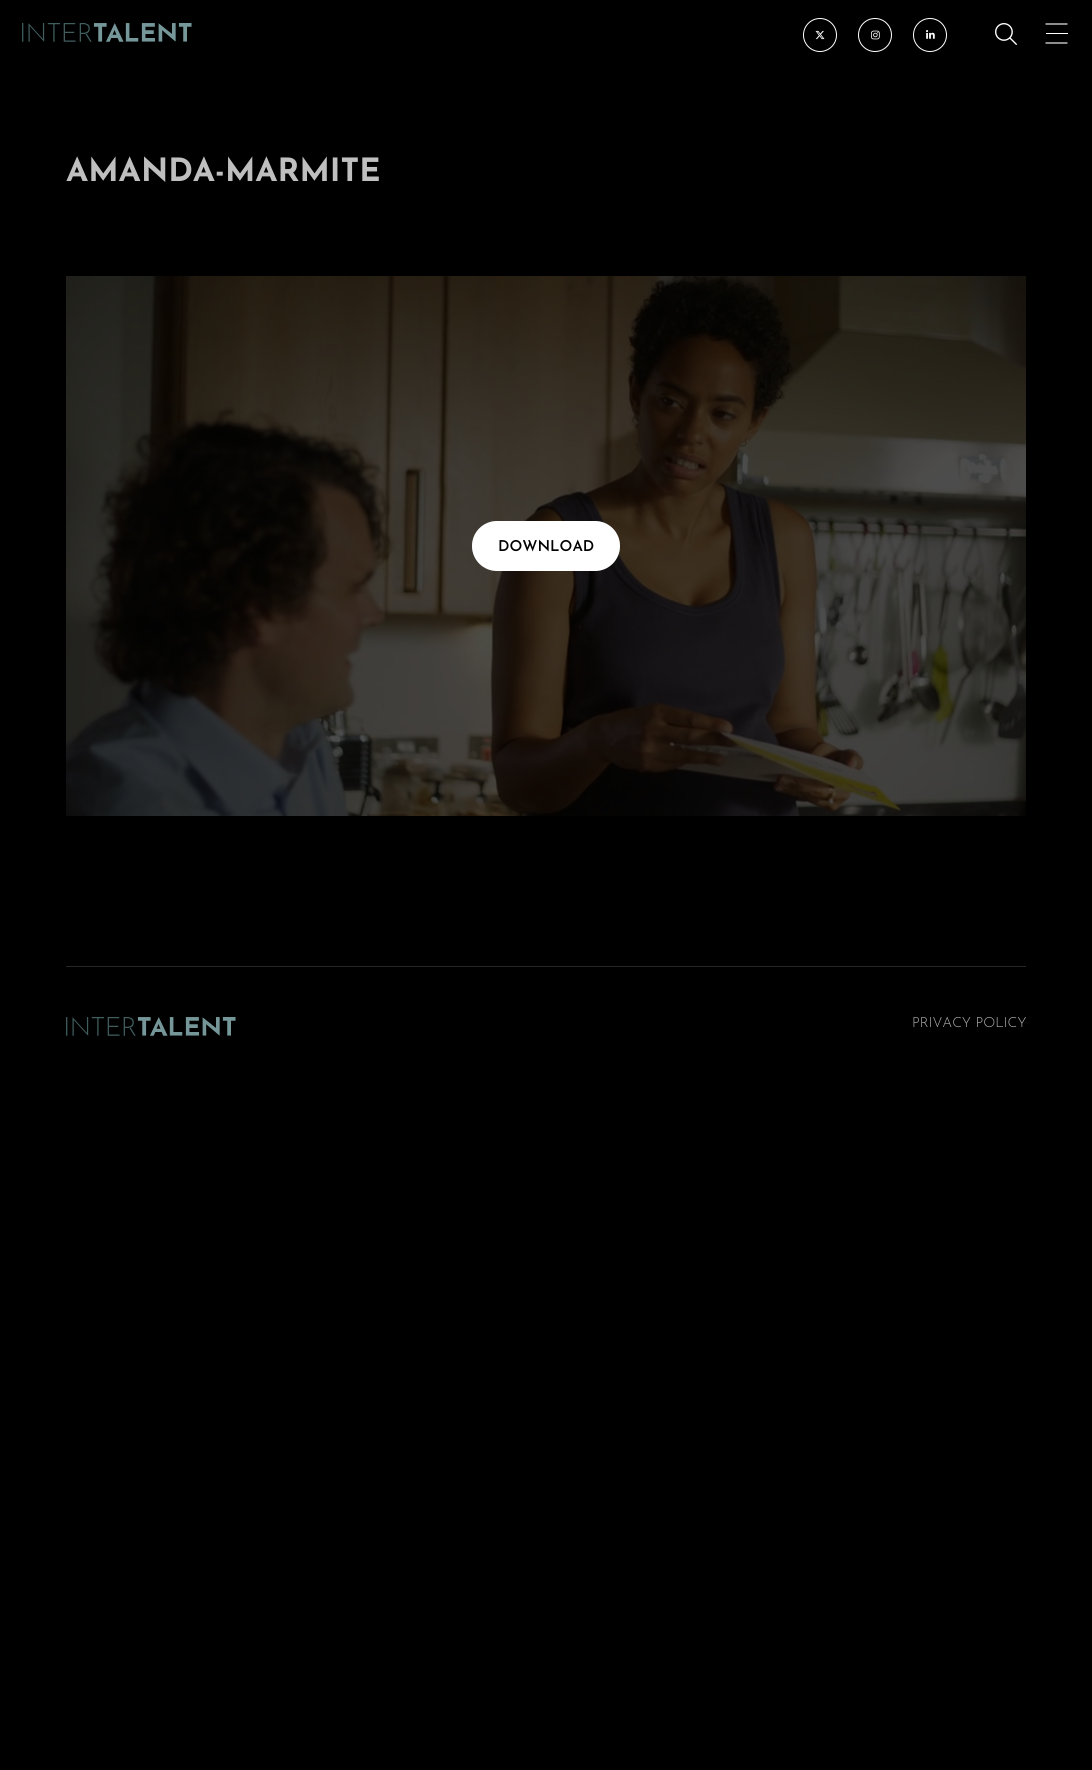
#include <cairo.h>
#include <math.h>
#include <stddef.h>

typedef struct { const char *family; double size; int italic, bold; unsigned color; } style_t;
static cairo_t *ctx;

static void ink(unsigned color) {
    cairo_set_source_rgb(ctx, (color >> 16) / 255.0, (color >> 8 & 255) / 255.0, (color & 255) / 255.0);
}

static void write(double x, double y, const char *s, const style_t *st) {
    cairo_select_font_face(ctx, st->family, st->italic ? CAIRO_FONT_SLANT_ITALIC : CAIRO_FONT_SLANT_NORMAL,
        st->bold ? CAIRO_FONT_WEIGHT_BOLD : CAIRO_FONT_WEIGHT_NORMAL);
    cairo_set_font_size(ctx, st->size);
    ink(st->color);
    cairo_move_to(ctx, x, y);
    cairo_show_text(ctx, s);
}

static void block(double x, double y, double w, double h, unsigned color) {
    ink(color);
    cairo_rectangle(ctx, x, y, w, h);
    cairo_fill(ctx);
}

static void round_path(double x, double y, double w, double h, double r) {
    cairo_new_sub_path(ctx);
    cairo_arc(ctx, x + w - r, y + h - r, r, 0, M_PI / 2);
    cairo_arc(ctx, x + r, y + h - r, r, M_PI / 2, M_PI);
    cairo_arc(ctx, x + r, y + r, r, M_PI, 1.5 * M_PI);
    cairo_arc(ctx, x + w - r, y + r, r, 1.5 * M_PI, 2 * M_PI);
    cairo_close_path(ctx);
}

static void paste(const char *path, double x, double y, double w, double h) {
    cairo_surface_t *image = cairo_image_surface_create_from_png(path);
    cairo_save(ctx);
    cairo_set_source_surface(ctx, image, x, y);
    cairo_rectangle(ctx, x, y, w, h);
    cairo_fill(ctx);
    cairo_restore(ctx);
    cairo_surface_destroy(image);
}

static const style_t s1 = {"Josefin Sans", 32, 0, 1, 0xbfbfbf};
static const style_t s2 = {"Josefin Sans SemiBold", 15, 0, 0, 0x000000};
static const style_t s3 = {"Josefin Sans Light", 14, 0, 0, 0xb3b3b3};

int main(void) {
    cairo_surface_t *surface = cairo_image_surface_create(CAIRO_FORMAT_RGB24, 1092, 1770);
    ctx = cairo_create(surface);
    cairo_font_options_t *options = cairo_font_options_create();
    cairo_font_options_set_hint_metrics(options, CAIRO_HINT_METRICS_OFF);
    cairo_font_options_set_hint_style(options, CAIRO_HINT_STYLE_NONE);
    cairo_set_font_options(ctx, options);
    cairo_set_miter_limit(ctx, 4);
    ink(0x000000);
    cairo_paint(ctx);
    paste("pic1.png", 22, 23, 170, 19);
    cairo_arc(ctx, 820, 35, 16.5, 0, 2 * M_PI);
    ink(0xffffff);
    cairo_set_line_width(ctx, 1);
    cairo_stroke(ctx);
    paste("pic2.png", 815, 30, 10, 10);
    cairo_arc(ctx, 875, 35, 16.5, 0, 2 * M_PI);
    cairo_stroke(ctx);
    paste("pic3.png", 871, 30, 9, 10);
    cairo_arc(ctx, 930, 35, 16.5, 0, 2 * M_PI);
    cairo_stroke(ctx);
    paste("pic4.png", 926, 30, 9, 9);
    paste("pic5.png", 995, 23, 22, 22);
    cairo_new_path(ctx);
    cairo_move_to(ctx, 1045.5, 24);
    cairo_line_to(ctx, 1067.5, 24);
    cairo_set_line_width(ctx, 1.1);
    cairo_stroke(ctx);
    block(1046, 33, 22, 1, 0xffffff);
    cairo_new_path(ctx);
    cairo_move_to(ctx, 1067.5, 43);
    cairo_line_to(ctx, 1045.5, 43);
    cairo_stroke(ctx);
    write(66, 181, "AMANDA-MARMITE", &s1);
    paste("pic6.png", 66, 276, 960, 540);
    ink(0xffffff);
    round_path(472, 521, 148, 50, 25);
    cairo_fill(ctx);
    round_path(472.5, 521.5, 147, 49, 24.5);
    cairo_set_source_rgba(ctx, 1, 1, 1, 0.25);
    cairo_set_line_width(ctx, 1);
    cairo_stroke(ctx);
    write(498, 551, "DOWNLOAD", &s2);
    block(66, 966, 960, 1, 0x262626);
    paste("pic1.png", 66, 1017, 170, 19);
    write(912, 1027, "PRIVACY POLICY", &s3);
    cairo_surface_write_to_png(surface, "screenshot.png");
    cairo_font_options_destroy(options);
    cairo_destroy(ctx);
    cairo_surface_destroy(surface);
    return 0;
}
